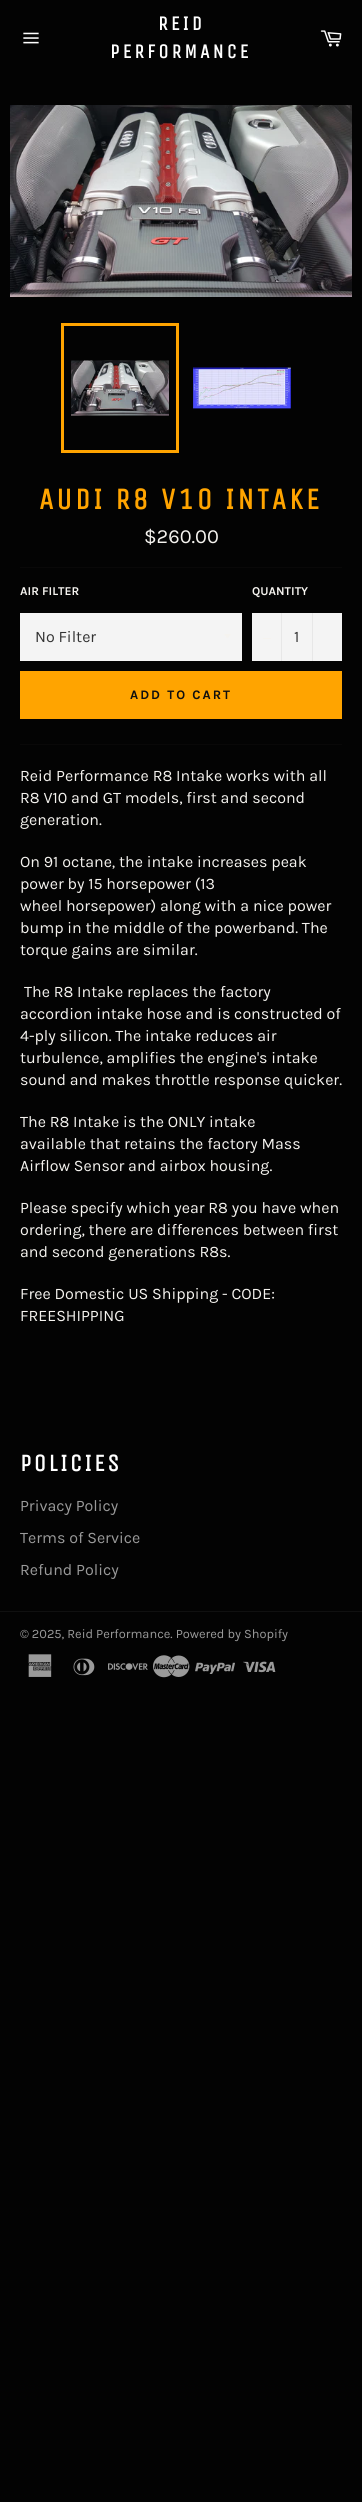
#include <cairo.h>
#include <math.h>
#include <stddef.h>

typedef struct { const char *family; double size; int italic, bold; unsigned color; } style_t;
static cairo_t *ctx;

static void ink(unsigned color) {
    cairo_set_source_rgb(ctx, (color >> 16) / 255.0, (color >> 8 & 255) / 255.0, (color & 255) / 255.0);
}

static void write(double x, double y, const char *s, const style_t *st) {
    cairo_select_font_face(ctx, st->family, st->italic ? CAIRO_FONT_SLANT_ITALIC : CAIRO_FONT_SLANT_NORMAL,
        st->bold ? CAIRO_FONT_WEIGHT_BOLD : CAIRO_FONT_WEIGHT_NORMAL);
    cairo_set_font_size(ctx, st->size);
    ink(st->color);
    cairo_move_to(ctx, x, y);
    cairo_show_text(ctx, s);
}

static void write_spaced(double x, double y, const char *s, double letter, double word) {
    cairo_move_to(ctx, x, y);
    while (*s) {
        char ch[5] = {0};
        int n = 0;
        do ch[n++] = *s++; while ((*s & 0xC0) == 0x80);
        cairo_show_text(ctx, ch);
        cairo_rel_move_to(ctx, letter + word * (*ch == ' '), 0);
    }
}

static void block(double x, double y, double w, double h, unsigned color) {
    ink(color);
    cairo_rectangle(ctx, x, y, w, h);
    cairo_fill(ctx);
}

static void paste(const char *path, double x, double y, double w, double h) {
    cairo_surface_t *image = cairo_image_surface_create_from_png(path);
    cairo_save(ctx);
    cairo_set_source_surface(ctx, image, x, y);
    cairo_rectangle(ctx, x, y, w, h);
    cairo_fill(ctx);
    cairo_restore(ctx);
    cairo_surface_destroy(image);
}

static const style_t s1 = {"Karla", 20, 0, 0, 0xf5f3ef};
static const style_t s2 = {"Karla", 12, 0, 1, 0xf5f3ef};
static const style_t s3 = {"Karla", 16, 0, 0, 0x333333};
static const style_t s4 = {"Karla", 16, 0, 0, 0xf5f3ef};
static const style_t s5 = {"Karla", 16, 0, 0, 0x9a9a9a};
static const style_t s6 = {"Karla", 12.8, 0, 0, 0x9a9a9a};

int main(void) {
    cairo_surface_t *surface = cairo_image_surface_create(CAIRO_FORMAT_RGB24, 362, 2502);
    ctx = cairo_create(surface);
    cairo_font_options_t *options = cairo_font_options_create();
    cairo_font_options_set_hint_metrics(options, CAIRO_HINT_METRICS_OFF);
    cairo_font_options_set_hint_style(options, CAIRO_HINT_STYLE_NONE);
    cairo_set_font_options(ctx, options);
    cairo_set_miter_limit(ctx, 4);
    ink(0x030303);
    cairo_paint(ctx);
    paste("pic1.png", 23, 32, 16, 12);
    cairo_select_font_face(ctx, "Unica One", CAIRO_FONT_SLANT_NORMAL, CAIRO_FONT_WEIGHT_BOLD);
    cairo_set_font_size(ctx, 20);
    ink(0xffffff);
    write_spaced(158, 30, "REID", 3, 0);
    write_spaced(110, 58, "PERFORMANCE", 3, 0);
    paste("pic2.png", 320, 30, 22, 17);
    paste("pic3.png", 10, 105, 342, 192);
    paste("pic4.png", 71, 360, 98, 56);
    cairo_rectangle(ctx, 62.5, 324.5, 115, 127);
    ink(0xffa400);
    cairo_set_line_width(ctx, 3);
    cairo_stroke(ctx);
    paste("pic5.png", 193, 367, 98, 42);
    cairo_set_font_size(ctx, 30);
    write_spaced(39, 509, "AUDI R8 V10 INTAKE", 3, 0);
    write(144, 543, "$260.00", &s1);
    block(20, 567, 322, 1, 0x090808);
    write(20, 595, "AIR FILTER", &s2);
    block(20, 613, 222, 48, 0xf4f4f4);
    ink(0xf5f3ef);
    cairo_new_path(ctx);
    cairo_move_to(ctx, 224, 634);
    cairo_curve_to(ctx, 228.5, 639.5, 226.5, 639.5, 231, 634);
    cairo_close_path(ctx);
    cairo_fill(ctx);
    write(35, 642, "No Filter", &s3);
    write(252, 595, "QUANTITY", &s2);
    block(252, 613, 90, 48, 0xf4f4f4);
    block(281, 613, 1, 48, 0xe7e7e7);
    block(263, 638, 8, 1, 0xf5f3ef);
    write(294, 642, "1", &s3);
    block(312, 613, 1, 48, 0xe7e7e7);
    block(20, 671, 322, 48, 0xffa400);
    cairo_select_font_face(ctx, "Karla", CAIRO_FONT_SLANT_NORMAL, CAIRO_FONT_WEIGHT_BOLD);
    cairo_set_font_size(ctx, 13);
    ink(0x0f0f0f);
    write_spaced(130, 699, "ADD TO CART", 2, 0);
    block(20, 744, 322, 1, 0x090808);
    write(20, 781, "Reid Performance R8 Intake works with all", &s4);
    write(20, 803, "R8 V10 and GT models, first and second", &s4);
    write(20, 825, "generation.", &s4);
    write(20, 867, "On 91 octane, the intake increases peak", &s4);
    write(20, 889, "power by 15 horsepower (13", &s4);
    write(20, 911, "wheel horsepower) along with a nice power", &s4);
    write(20, 933, "bump in the middle of the powerband. The", &s4);
    write(20, 955, "torque gains are similar.", &s4);
    write(24, 997, "The R8 Intake replaces the factory", &s4);
    write(20, 1019, "accordion intake hose and is constructed of", &s4);
    write(20, 1041, "4-ply silicon. The intake reduces air", &s4);
    write(20, 1063, "turbulence, amplifies the engine's intake", &s4);
    write(20, 1085, "sound and makes throttle response quicker.", &s4);
    write(20, 1127, "The R8 Intake is the ONLY intake", &s4);
    write(20, 1149, "available that retains the factory Mass", &s4);
    write(20, 1171, "Airflow Sensor and airbox housing.", &s4);
    write(20, 1213, "Please specify which year R8 you have when", &s4);
    write(20, 1235, "ordering, there are differences between first", &s4);
    write(20, 1257, "and second generations R8s.", &s4);
    write(20, 1299, "Free Domestic US Shipping - CODE:", &s4);
    write(20, 1321, "FREESHIPPING", &s4);
    cairo_select_font_face(ctx, "Unica One", CAIRO_FONT_SLANT_NORMAL, CAIRO_FONT_WEIGHT_BOLD);
    cairo_set_font_size(ctx, 24);
    ink(0xffffff);
    write_spaced(20, 1471, "POLICIES", 2.5, 0);
    write(20, 1511, "Privacy Policy", &s5);
    write(20, 1543, "Terms of Service", &s5);
    write(20, 1575, "Refund Policy", &s5);
    block(0, 1611, 362, 1, 0x101010);
    write(20, 1638, "© 2025, Reid Performance. Powered by Shopify", &s6);
    paste("pic6.png", 28, 1654, 24, 23);
    paste("pic7.png", 73, 1658, 22, 18);
    paste("pic8.png", 108, 1663, 40, 7);
    paste("pic9.png", 153, 1655, 37, 23);
    paste("pic10.png", 195, 1662, 40, 12);
    paste("pic11.png", 243, 1661, 33, 12);
    cairo_surface_write_to_png(surface, "screenshot.png");
    cairo_font_options_destroy(options);
    cairo_destroy(ctx);
    cairo_surface_destroy(surface);
    return 0;
}
